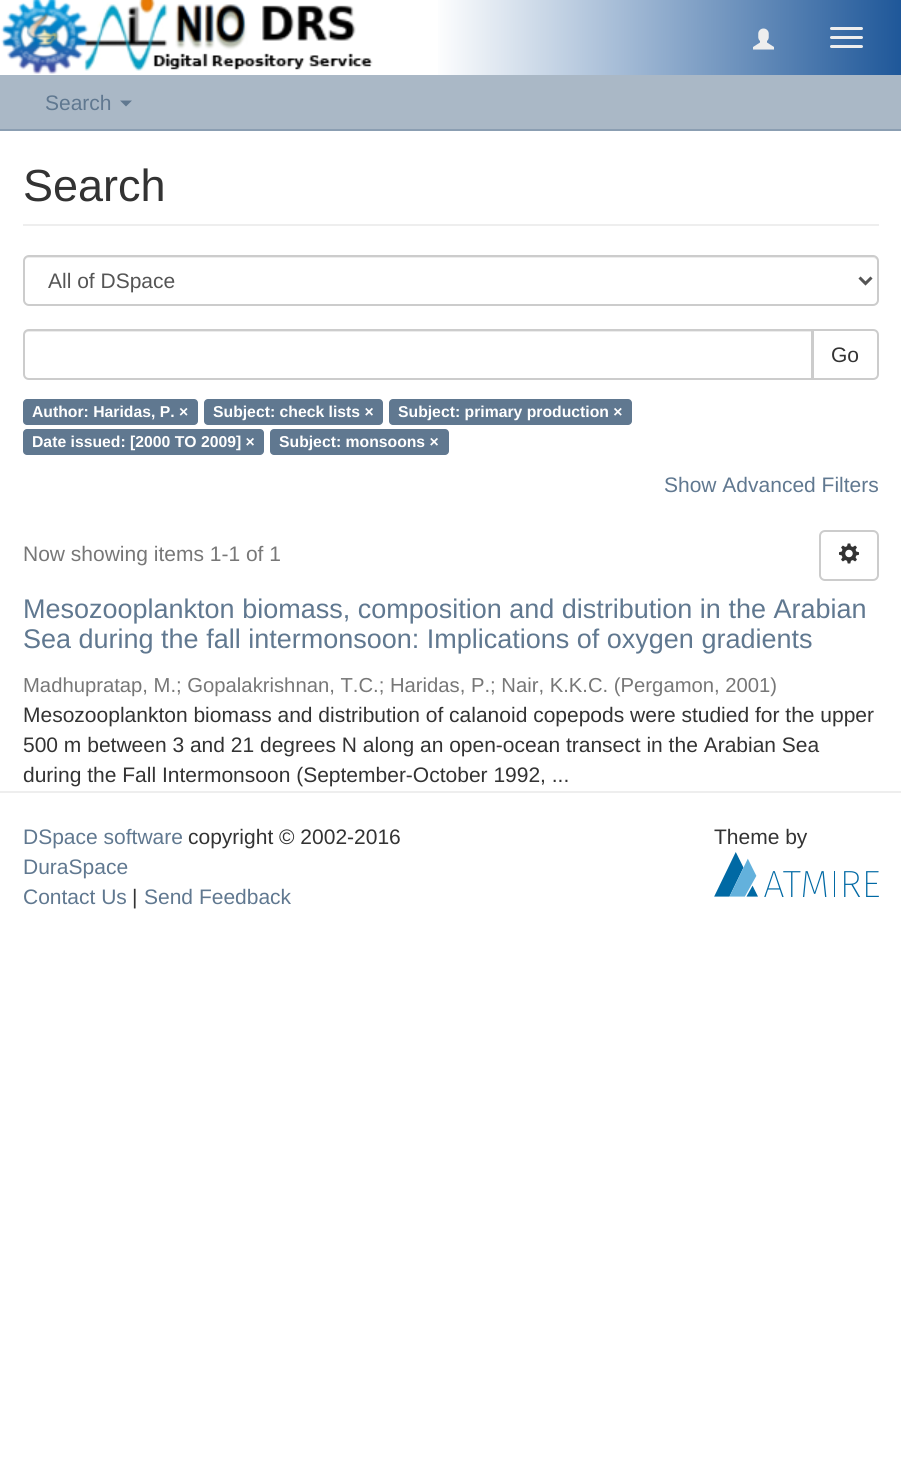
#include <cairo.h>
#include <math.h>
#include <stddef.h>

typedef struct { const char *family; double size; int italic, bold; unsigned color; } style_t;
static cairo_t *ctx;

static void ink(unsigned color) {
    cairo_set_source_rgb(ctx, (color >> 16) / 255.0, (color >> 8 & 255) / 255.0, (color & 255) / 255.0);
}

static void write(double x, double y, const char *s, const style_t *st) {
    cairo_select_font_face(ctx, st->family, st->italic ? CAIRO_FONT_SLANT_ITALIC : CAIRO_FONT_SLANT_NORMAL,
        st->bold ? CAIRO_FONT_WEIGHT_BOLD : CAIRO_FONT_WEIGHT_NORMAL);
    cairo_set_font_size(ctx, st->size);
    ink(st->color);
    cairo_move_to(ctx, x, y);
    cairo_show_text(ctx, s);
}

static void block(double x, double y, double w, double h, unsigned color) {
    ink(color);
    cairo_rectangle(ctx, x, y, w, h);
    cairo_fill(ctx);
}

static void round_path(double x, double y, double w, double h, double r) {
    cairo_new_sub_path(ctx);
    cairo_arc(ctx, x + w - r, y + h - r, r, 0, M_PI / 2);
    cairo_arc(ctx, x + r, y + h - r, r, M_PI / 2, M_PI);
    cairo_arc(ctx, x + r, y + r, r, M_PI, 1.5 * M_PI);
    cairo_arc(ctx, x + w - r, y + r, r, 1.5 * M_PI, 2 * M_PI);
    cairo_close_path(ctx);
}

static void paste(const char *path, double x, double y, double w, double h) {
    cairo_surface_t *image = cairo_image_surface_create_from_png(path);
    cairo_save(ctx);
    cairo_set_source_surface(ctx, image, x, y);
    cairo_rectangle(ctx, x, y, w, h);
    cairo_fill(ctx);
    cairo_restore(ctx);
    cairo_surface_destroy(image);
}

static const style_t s1 = {"Liberation Sans", 21, 0, 0, 0x607890};
static const style_t s2 = {"Liberation Sans", 45, 0, 0, 0x333333};
static const style_t s3 = {"Liberation Sans", 21, 0, 0, 0x555555};
static const style_t s4 = {"Liberation Sans", 21, 0, 0, 0x333333};
static const style_t s5 = {"Liberation Sans", 15.75, 0, 1, 0xffffff};
static const style_t s6 = {"Liberation Sans", 21, 0, 0, 0x777777};
static const style_t s7 = {"Liberation Sans", 27, 0, 0, 0x607890};
static const style_t s8 = {"Liberation Sans", 20.25, 0, 0, 0x777777};

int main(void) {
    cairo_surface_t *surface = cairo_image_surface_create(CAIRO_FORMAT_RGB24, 901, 1457);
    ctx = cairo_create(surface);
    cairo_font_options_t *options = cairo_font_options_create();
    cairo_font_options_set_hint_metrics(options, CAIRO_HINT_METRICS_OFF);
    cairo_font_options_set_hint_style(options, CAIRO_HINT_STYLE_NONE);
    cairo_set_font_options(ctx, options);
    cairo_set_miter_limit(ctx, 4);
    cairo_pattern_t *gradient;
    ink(0xffffff);
    cairo_paint(ctx);
    gradient = cairo_pattern_create_linear(0, 38, 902, 37);
    cairo_pattern_add_color_stop_rgba(gradient, 0.48, 1, 1, 1, 1);
    cairo_pattern_add_color_stop_rgba(gradient, 1, 0.118, 0.341, 0.6, 1);
    cairo_set_source(ctx, gradient);
    cairo_pattern_destroy(gradient);
    cairo_rectangle(ctx, 438, 0, 463, 75);
    cairo_fill(ctx);
    paste("pic1.png", 1, 0, 372, 74);
    paste("pic2.png", 753, 28, 21, 22);
    ink(0xeeeeee);
    round_path(830, 27, 33, 3, 1.5);
    cairo_fill(ctx);
    round_path(830, 36, 33, 3, 1.5);
    cairo_fill(ctx);
    round_path(830, 45, 33, 3, 1.5);
    cairo_fill(ctx);
    block(0, 75, 901, 54, 0xaab8c6);
    block(0, 129, 901, 2, 0x8b9eb2);
    write(45, 110, "Search", &s1);
    cairo_new_path(ctx);
    cairo_move_to(ctx, 120, 100.5);
    cairo_line_to(ctx, 132, 100.5);
    cairo_line_to(ctx, 126, 106.5);
    cairo_close_path(ctx);
    cairo_fill(ctx);
    block(23, 224, 856, 2, 0xeeeeee);
    write(23, 201, "Search", &s2);
    ink(0xececec);
    cairo_new_path(ctx);
    cairo_move_to(ctx, 28, 258);
    cairo_line_to(ctx, 873, 258);
    cairo_curve_to(ctx, 875, 258, 878, 260, 878, 262);
    cairo_curve_to(ctx, 878, 259, 876, 257, 873, 257);
    cairo_line_to(ctx, 29, 257);
    cairo_curve_to(ctx, 26, 257, 24, 259, 24, 262);
    cairo_curve_to(ctx, 24, 260, 26, 258, 28, 258);
    cairo_close_path(ctx);
    cairo_fill(ctx);
    round_path(24, 256, 854, 49, 5);
    ink(0xcccccc);
    cairo_stroke(ctx);
    cairo_new_path(ctx);
    cairo_move_to(ctx, 859.5, 277.5);
    cairo_line_to(ctx, 865.5, 283.5);
    cairo_line_to(ctx, 871.5, 277.5);
    ink(0x555555);
    cairo_set_line_width(ctx, 3);
    cairo_stroke(ctx);
    write(48, 288, "All of DSpace", &s3);
    cairo_new_path(ctx);
    cairo_move_to(ctx, 813, 330);
    cairo_line_to(ctx, 873, 330);
    cairo_curve_to(ctx, 876, 330, 878, 332, 878, 335);
    cairo_line_to(ctx, 878, 374);
    cairo_curve_to(ctx, 878, 377, 876, 379, 873, 379);
    cairo_line_to(ctx, 813, 379);
    cairo_close_path(ctx);
    ink(0xcccccc);
    cairo_set_line_width(ctx, 2);
    cairo_stroke(ctx);
    ink(0xffffff);
    cairo_new_path(ctx);
    cairo_move_to(ctx, 29, 329);
    cairo_line_to(ctx, 813, 329);
    cairo_line_to(ctx, 813, 380);
    cairo_line_to(ctx, 29, 380);
    cairo_curve_to(ctx, 25.5, 380, 23, 377.5, 23, 374);
    cairo_line_to(ctx, 23, 335);
    cairo_curve_to(ctx, 23, 331.5, 25.5, 329, 29, 329);
    cairo_close_path(ctx);
    cairo_fill(ctx);
    ink(0xececec);
    cairo_new_path(ctx);
    cairo_move_to(ctx, 28, 332);
    cairo_line_to(ctx, 812, 332);
    cairo_line_to(ctx, 812, 330);
    cairo_line_to(ctx, 29, 330);
    cairo_curve_to(ctx, 26, 330, 24, 332, 24, 335);
    cairo_line_to(ctx, 24, 336);
    cairo_curve_to(ctx, 24, 334, 26, 332, 28, 332);
    cairo_close_path(ctx);
    cairo_fill(ctx);
    cairo_new_path(ctx);
    cairo_move_to(ctx, 29, 330);
    cairo_line_to(ctx, 812, 330);
    cairo_line_to(ctx, 812, 379);
    cairo_line_to(ctx, 29, 379);
    cairo_curve_to(ctx, 26, 379, 24, 377, 24, 374);
    cairo_line_to(ctx, 24, 335);
    cairo_curve_to(ctx, 24, 332, 26, 330, 29, 330);
    cairo_close_path(ctx);
    ink(0xcccccc);
    cairo_stroke(ctx);
    write(831, 362, "Go", &s4);
    ink(0x607890);
    round_path(23, 399, 175, 26, 4);
    cairo_fill(ctx);
    write(32, 417, "Author: Haridas, P. ×", &s5);
    ink(0x607890);
    round_path(204, 399, 179, 26, 4);
    cairo_fill(ctx);
    write(213, 417, "Subject: check lists ×", &s5);
    ink(0x607890);
    round_path(389, 399, 243, 26, 4);
    cairo_fill(ctx);
    write(398, 417, "Subject: primary production ×", &s5);
    ink(0x607890);
    round_path(23, 429, 241, 26, 4);
    cairo_fill(ctx);
    write(32, 447, "Date issued: [2000 TO 2009] ×", &s5);
    ink(0x607890);
    round_path(270, 429, 179, 26, 4);
    cairo_fill(ctx);
    write(279, 447, "Subject: monsoons ×", &s5);
    write(664, 492, "Show Advanced Filters", &s1);
    write(23, 561, "Now showing items 1-1 of 1", &s6);
    round_path(820, 531, 58, 49, 5);
    ink(0xcccccc);
    cairo_stroke(ctx);
    paste("pic3.png", 838, 543, 22, 21);
    write(23, 618, "Mesozooplankton biomass, composition and distribution in the Arabian", &s7);
    write(23, 648, "Sea during the fall intermonsoon: Implications of oxygen gradients", &s7);
    write(23, 692, "Madhupratap, M.; Gopalakrishnan, T.C.; Haridas, P.; Nair, K.K.C. (Pergamon, 2001)", &s8);
    write(23, 722, "Mesozooplankton biomass and distribution of calanoid copepods were studied for the upper", &s4);
    write(23, 752, "500 m between 3 and 21 degrees N along an open-ocean transect in the Arabian Sea", &s4);
    write(23, 782, "during the Fall Intermonsoon (September-October 1992, ...", &s4);
    block(0, 791, 901, 2, 0xeeeeee);
    write(23, 844, "DSpace software", &s1);
    write(188, 844, "copyright © 2002-2016", &s4);
    write(23, 874, "DuraSpace", &s1);
    write(23, 904, "Contact Us", &s1);
    write(132, 904, "|", &s4);
    write(144, 904, "Send Feedback", &s1);
    write(714, 844, "Theme by", &s4);
    paste("pic4.png", 714, 852, 165, 45);
    cairo_surface_write_to_png(surface, "screenshot.png");
    cairo_font_options_destroy(options);
    cairo_destroy(ctx);
    cairo_surface_destroy(surface);
    return 0;
}
